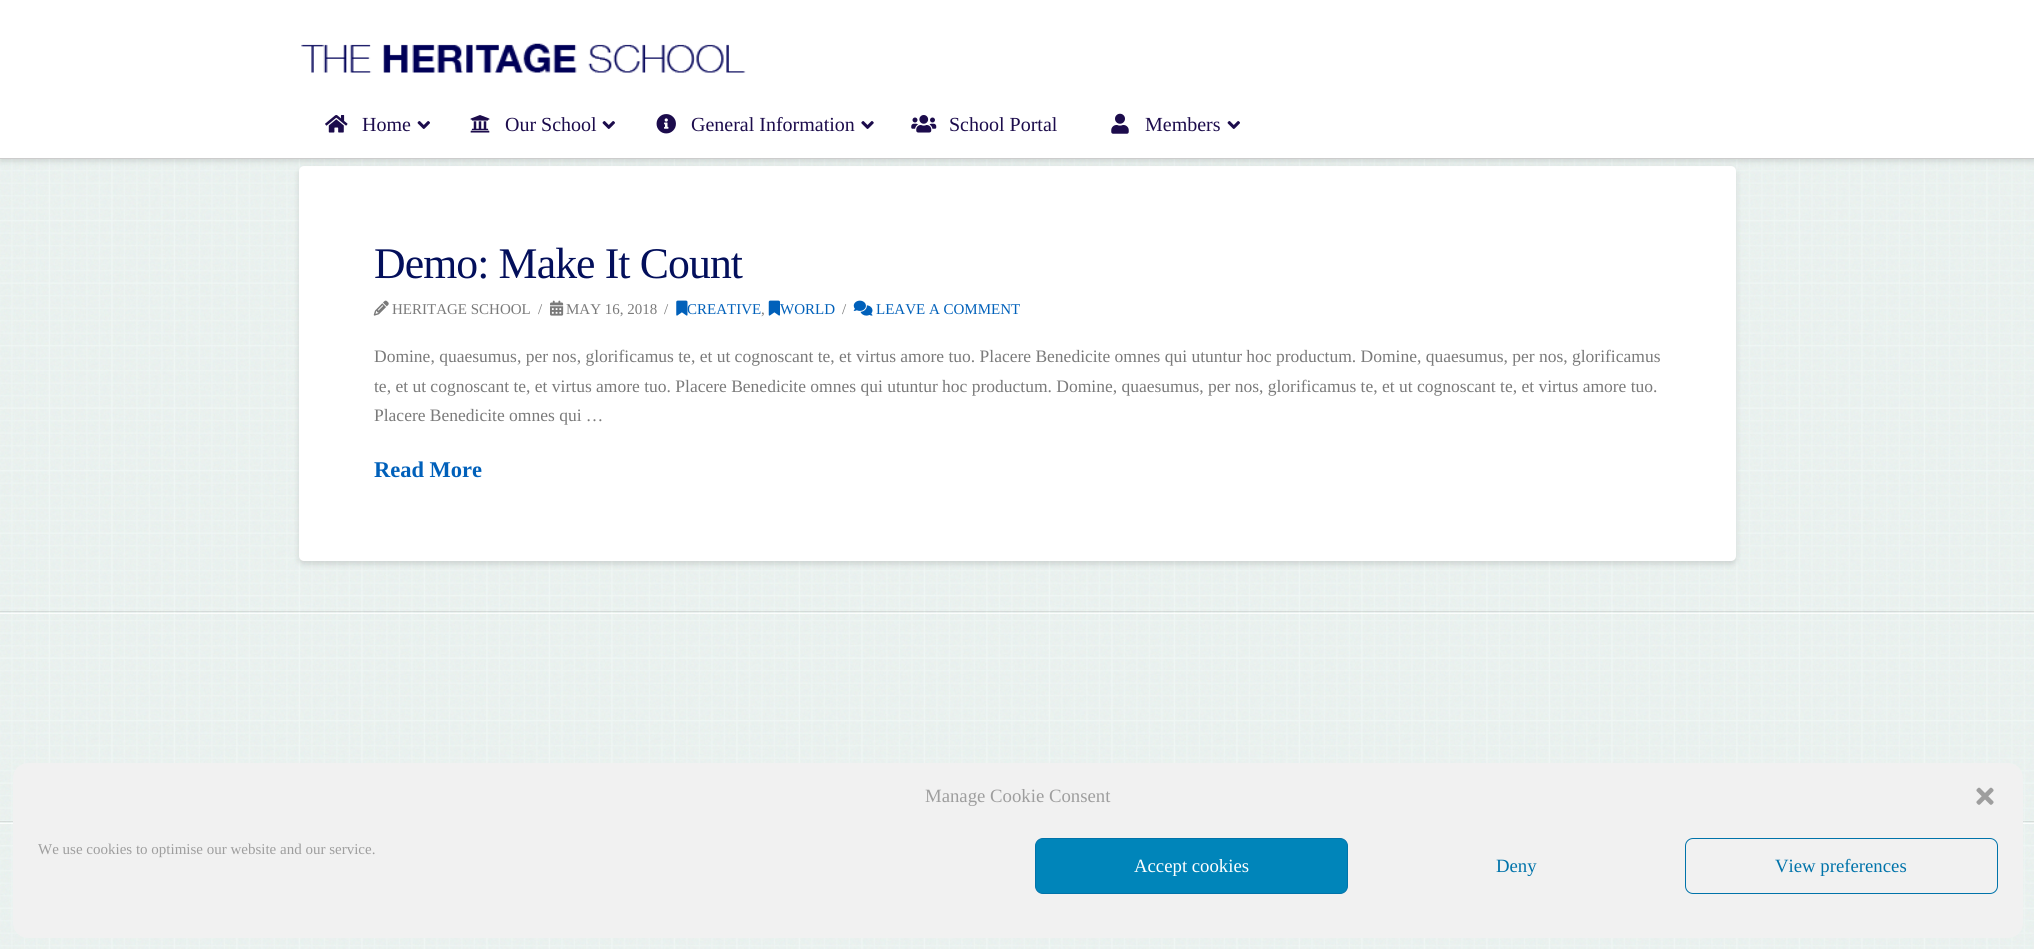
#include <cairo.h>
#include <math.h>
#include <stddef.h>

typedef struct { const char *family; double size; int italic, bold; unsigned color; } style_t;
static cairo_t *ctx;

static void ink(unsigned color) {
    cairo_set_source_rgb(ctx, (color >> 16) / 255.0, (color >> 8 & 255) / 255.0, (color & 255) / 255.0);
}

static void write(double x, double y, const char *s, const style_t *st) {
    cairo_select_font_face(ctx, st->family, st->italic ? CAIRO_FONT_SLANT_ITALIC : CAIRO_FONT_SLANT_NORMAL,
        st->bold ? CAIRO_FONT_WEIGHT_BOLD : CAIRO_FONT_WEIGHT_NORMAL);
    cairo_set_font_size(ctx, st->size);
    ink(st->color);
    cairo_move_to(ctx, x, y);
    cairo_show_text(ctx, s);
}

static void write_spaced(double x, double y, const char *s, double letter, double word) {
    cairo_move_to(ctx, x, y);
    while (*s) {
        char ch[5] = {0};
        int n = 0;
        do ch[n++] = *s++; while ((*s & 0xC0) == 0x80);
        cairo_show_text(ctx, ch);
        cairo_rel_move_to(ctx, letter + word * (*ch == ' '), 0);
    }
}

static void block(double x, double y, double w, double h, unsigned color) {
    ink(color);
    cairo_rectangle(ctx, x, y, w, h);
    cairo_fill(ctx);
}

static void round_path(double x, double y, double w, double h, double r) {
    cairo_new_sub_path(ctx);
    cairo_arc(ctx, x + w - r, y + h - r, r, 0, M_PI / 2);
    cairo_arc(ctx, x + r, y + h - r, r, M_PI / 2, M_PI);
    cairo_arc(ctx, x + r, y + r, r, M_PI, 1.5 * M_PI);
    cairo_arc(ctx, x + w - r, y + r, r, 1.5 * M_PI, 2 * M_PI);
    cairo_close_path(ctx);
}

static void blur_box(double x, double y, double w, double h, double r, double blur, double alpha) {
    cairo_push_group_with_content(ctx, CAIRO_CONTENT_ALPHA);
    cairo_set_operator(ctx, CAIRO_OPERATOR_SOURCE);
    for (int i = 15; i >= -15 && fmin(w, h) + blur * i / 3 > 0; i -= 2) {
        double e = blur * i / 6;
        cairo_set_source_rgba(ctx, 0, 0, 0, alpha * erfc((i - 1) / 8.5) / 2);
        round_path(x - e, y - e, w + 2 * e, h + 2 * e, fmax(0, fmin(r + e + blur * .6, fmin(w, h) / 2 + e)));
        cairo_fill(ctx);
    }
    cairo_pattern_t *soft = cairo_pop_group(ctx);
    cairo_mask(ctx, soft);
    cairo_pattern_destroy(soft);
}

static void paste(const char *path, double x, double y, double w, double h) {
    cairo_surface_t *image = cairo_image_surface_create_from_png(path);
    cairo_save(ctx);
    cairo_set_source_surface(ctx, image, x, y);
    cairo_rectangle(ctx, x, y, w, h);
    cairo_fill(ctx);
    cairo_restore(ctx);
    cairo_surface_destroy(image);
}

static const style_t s1 = {"Liberation Serif", 20, 0, 0, 0x1c0c4c};
static const style_t s2 = {"Liberation Serif", 15, 0, 0, 0x7a7a7a};
static const style_t s3 = {"Liberation Serif", 15, 0, 0, 0x0060ba};
static const style_t s4 = {"Liberation Serif", 17.5, 0, 0, 0x7a7a7a};
static const style_t s5 = {"Liberation Serif", 22.5, 0, 1, 0x0060ba};
static const style_t s6 = {"Liberation Serif", 18.75, 0, 0, 0x9e9e9e};
static const style_t s7 = {"Liberation Serif", 15, 0, 0, 0x9e9e9e};
static const style_t s8 = {"Liberation Serif", 18.75, 0, 0, 0xffffff};
static const style_t s9 = {"Liberation Serif", 18.75, 0, 0, 0x0073aa};

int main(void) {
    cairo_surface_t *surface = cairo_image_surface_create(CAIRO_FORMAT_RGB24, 2034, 949);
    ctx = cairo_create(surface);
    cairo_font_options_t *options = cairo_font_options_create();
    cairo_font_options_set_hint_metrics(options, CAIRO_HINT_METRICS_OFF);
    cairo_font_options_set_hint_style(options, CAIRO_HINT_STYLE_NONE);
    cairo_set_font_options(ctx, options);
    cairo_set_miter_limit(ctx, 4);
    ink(0xffffff);
    cairo_paint(ctx);
    paste("pic1.png", 0, 159, 2034, 790);
    ink(0x000000);
    blur_box(299, 169, 1437, 395, 5, 3, 0.13);
    ink(0xffffff);
    round_path(299, 166, 1437, 395, 5);
    cairo_fill(ctx);
    ink(0x000000);
    blur_box(0, 3, 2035, 158, 0, 3, 0.13);
    block(0, 0, 2034, 158, 0xffffff);
    block(0, 158, 2034, 1, 0xcccccc);
    paste("pic2.png", 301, 43, 445, 30);
    paste("pic3.png", 325, 115, 23, 18);
    write(362, 131, "Home", &s1);
    paste("pic4.png", 417, 121, 13, 8);
    paste("pic5.png", 470, 115, 20, 18);
    write(505, 131, "Our School", &s1);
    paste("pic4.png", 602, 121, 13, 8);
    paste("pic6.png", 656, 114, 20, 20);
    write(691, 131, "General Information", &s1);
    paste("pic7.png", 861, 121, 13, 8);
    paste("pic8.png", 911, 115, 26, 18);
    write(949, 131, "School Portal", &s1);
    paste("pic9.png", 1111, 113, 18, 21);
    write(1145, 131, "Members", &s1);
    paste("pic4.png", 1227, 121, 13, 8);
    cairo_set_font_size(ctx, 43.75);
    ink(0x030f5b);
    write_spaced(374, 278, "Demo: Make It Count", -0.9, 0);
    paste("pic10.png", 373, 300, 16, 16);
    write(392, 314, "HERITAGE SCHOOL", &s2);
    write(538, 314, "/", &s2);
    paste("pic11.png", 550, 300, 14, 16);
    write(566, 314, "MAY 16, 2018", &s2);
    write(664, 314, "/", &s2);
    paste("pic12.png", 676, 300, 12, 16);
    write(687, 314, "CREATIVE", &s3);
    write(761, 314, ",", &s2);
    paste("pic13.png", 768, 300, 12, 16);
    write(780, 314, "WORLD", &s3);
    write(842, 314, "/", &s2);
    paste("pic14.png", 853, 300, 20, 16);
    write(876, 314, "LEAVE A COMMENT", &s3);
    write(374, 362, "Domine, quaesumus, per nos, glorificamus te, et ut cognoscant te, et virtus amore tuo. Placere Benedicite omnes qui utuntur hoc productum. Domine, quaesumus, per nos, glorificamus", &s4);
    write(374, 392, "te, et ut cognoscant te, et virtus amore tuo. Placere Benedicite omnes qui utuntur hoc productum. Domine, quaesumus, per nos, glorificamus te, et ut cognoscant te, et virtus amore tuo.", &s4);
    write(374, 421, "Placere Benedicite omnes qui …", &s4);
    write(374, 477, "Read More", &s5);
    cairo_set_source_rgba(ctx, 1, 1, 1, 0.8);
    cairo_rectangle(ctx, 0, 613, 2034, 1);
    cairo_fill(ctx);
    cairo_set_source_rgba(ctx, 0, 0, 0, 0.09);
    cairo_rectangle(ctx, 0, 611, 2034, 1);
    cairo_fill(ctx);
    cairo_set_source_rgba(ctx, 1, 1, 1, 0.8);
    cairo_rectangle(ctx, 0, 823, 2034, 1);
    cairo_fill(ctx);
    cairo_set_source_rgba(ctx, 0, 0, 0, 0.09);
    cairo_rectangle(ctx, 0, 821, 2034, 1);
    cairo_fill(ctx);
    ink(0xf1f1f1);
    round_path(13, 763, 2010, 175, 15);
    cairo_fill(ctx);
    write(925, 802, "Manage Cookie Consent", &s6);
    paste("pic15.png", 1976, 787, 18, 18);
    write(38, 854, "We use cookies to optimise our website and our service.", &s7);
    ink(0x0085ba);
    round_path(1035.5, 838.5, 312, 55, 7.5);
    cairo_fill_preserve(ctx);
    ink(0x0073aa);
    cairo_set_line_width(ctx, 1);
    cairo_stroke(ctx);
    write(1134, 872, "Accept cookies", &s8);
    write(1496, 872, "Deny", &s9);
    round_path(1685.5, 838.5, 312, 55, 7.5);
    cairo_stroke(ctx);
    write(1775, 872, "View preferences", &s9);
    cairo_surface_write_to_png(surface, "screenshot.png");
    cairo_font_options_destroy(options);
    cairo_destroy(ctx);
    cairo_surface_destroy(surface);
    return 0;
}
